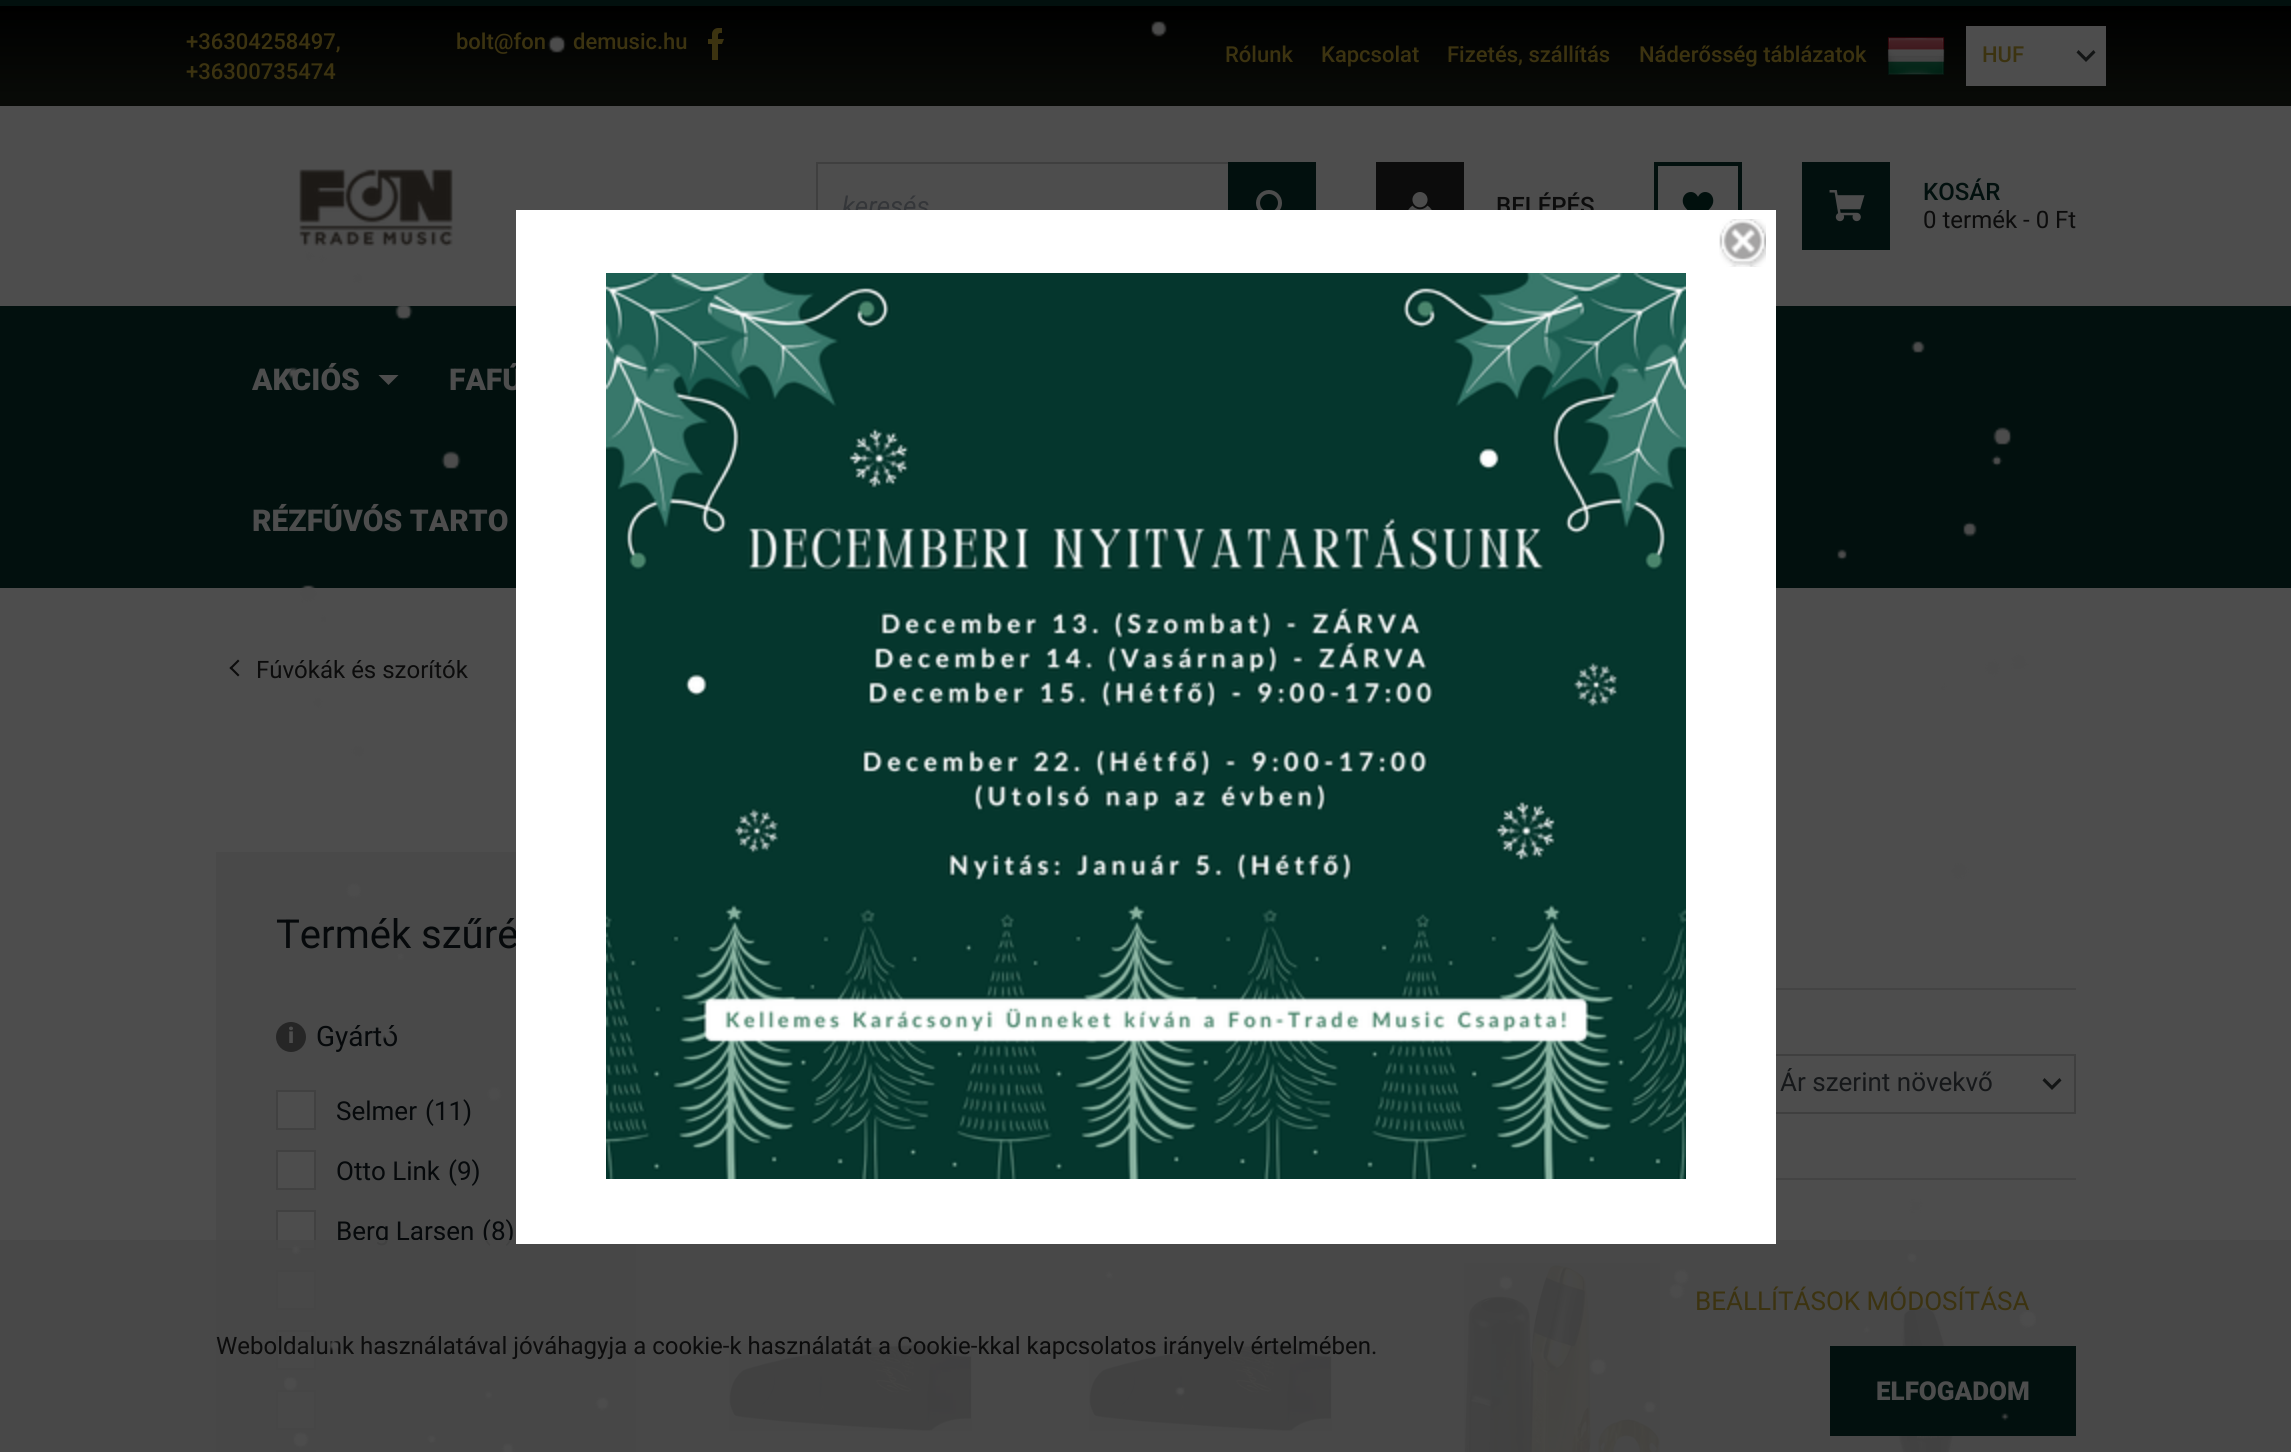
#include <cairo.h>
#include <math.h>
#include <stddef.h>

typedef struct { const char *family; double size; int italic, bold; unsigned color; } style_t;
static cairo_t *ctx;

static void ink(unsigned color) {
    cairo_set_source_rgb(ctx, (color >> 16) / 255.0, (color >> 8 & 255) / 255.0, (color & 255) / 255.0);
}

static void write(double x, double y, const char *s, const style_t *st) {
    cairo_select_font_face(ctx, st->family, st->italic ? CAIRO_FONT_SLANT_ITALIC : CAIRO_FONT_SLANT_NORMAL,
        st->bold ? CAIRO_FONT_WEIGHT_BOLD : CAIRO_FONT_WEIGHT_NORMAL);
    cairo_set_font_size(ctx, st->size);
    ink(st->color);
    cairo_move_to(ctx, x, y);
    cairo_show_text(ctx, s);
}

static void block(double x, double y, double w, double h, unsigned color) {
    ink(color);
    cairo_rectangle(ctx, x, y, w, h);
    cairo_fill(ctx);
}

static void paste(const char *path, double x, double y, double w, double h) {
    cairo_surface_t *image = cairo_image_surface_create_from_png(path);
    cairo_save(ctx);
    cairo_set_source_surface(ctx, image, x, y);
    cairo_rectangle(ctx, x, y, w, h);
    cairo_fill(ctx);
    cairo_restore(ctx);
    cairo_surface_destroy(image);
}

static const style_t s1 = {"Roboto Medium", 22, 0, 0, 0x3c3310};
static const style_t s2 = {"Roboto", 26, 1, 0, 0x343639};
static const style_t s3 = {"Roboto Medium", 24, 0, 0, 0x0c0c0c};
static const style_t s4 = {"Roboto Medium", 24, 0, 0, 0x02100e};
static const style_t s5 = {"Roboto", 24, 0, 0, 0x0c0c0c};
static const style_t s6 = {"Roboto Black", 30, 0, 0, 0x4d4d4d};
static const style_t s7 = {"Roboto", 40, 0, 0, 0x06090b};
static const style_t s8 = {"Roboto Black", 22, 0, 0, 0x4d4d4d};
static const style_t s9 = {"Roboto", 28, 0, 0, 0x06090b};
static const style_t s10 = {"Roboto", 26, 0, 0, 0x06090b};
static const style_t s11 = {"Roboto", 26, 0, 0, 0x16181a};
static const style_t s12 = {"Roboto", 26, 0, 0, 0x3c3310};
static const style_t s13 = {"Roboto Black", 26, 0, 0, 0x4d4d4d};

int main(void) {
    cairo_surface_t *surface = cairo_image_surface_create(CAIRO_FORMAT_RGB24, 2291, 1452);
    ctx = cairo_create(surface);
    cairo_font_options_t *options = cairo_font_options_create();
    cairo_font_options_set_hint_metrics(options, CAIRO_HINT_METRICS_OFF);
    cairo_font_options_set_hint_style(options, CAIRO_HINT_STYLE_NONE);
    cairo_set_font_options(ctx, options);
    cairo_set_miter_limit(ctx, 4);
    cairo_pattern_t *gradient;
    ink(0x4d4d4d);
    cairo_paint(ctx);
    gradient = cairo_pattern_create_linear(1146, 6, 1146, 106);
    cairo_pattern_add_color_stop_rgba(gradient, 0, 0, 0, 0, 1);
    cairo_pattern_add_color_stop_rgba(gradient, 0.9, 0.031, 0.039, 0.027, 1);
    cairo_set_source(ctx, gradient);
    cairo_pattern_destroy(gradient);
    cairo_rectangle(ctx, 0, 6, 2291, 100);
    cairo_fill(ctx);
    write(186, 49, "+36304258497,", &s1);
    write(186, 79, "+36300735474", &s1);
    write(456, 49, "bolt@fon", &s1);
    write(573, 49, "demusic.hu", &s1);
    paste("pic2.png", 708, 28, 16, 32);
    write(1225, 62, "Rólunk", &s1);
    write(1321, 62, "Kapcsolat", &s1);
    write(1447, 62, "Fizetés, szállítás", &s1);
    write(1639, 62, "Náderősség táblázatok", &s1);
    paste("pic3.png", 1887, 37, 58, 38);
    block(1966, 26, 140, 60, 0x4d4d4d);
    write(1982, 62, "HUF", &s1);
    paste("pic4.png", 299, 169, 154, 77);
    cairo_rectangle(ctx, 817, 163, 498, 86);
    ink(0x3f3f3f);
    cairo_stroke(ctx);
    write(842, 215, "keresés", &s2);
    block(1228, 162, 88, 48, 0x02100e);
    paste("pic5.png", 1256, 190, 26, 20);
    block(1376, 162, 88, 48, 0x0c0c0c);
    paste("pic6.png", 1408, 192, 24, 18);
    write(1496, 214, "BELÉPÉS", &s3);
    cairo_rectangle(ctx, 1656, 164, 84, 84);
    ink(0x02100e);
    cairo_set_line_width(ctx, 4);
    cairo_stroke(ctx);
    paste("pic7.png", 1682, 192, 32, 18);
    block(1802, 162, 88, 88, 0x02100e);
    paste("pic8.png", 1829, 190, 36, 32);
    write(1923, 200, "KOSÁR", &s4);
    write(1923, 228, "0 termék - 0 Ft", &s5);
    block(0, 306, 2291, 282, 0x02100e);
    write(252, 390, "AKCIÓS", &s6);
    cairo_new_path(ctx);
    cairo_move_to(ctx, 378.5, 375);
    cairo_line_to(ctx, 398.5, 375);
    cairo_line_to(ctx, 388.5, 385);
    cairo_close_path(ctx);
    cairo_fill(ctx);
    write(449, 390, "FAFÚ", &s6);
    write(252, 531, "RÉZFÚVÓS TARTO", &s6);
    write(256, 678, "Fúvókák és szorítók", &s5);
    block(216, 852, 420, 600, 0x494949);
    write(276, 948, "Termék szűré", &s7);
    ink(0x262626);
    cairo_new_path(ctx);
    cairo_arc(ctx, 291, 1037, 15, 0, 2 * M_PI);
    cairo_fill(ctx);
    write(288, 1043, "i", &s8);
    write(316, 1046, "Gyártó", &s9);
    ink(0x4d4d4d);
    cairo_rectangle(ctx, 277, 1091, 38, 38);
    cairo_fill_preserve(ctx);
    ink(0x414141);
    cairo_set_line_width(ctx, 2);
    cairo_stroke(ctx);
    write(336, 1120, "Selmer", &s10);
    write(425, 1120, "(11)", &s10);
    ink(0x4d4d4d);
    cairo_rectangle(ctx, 277, 1151, 38, 38);
    cairo_fill_preserve(ctx);
    ink(0x414141);
    cairo_stroke(ctx);
    write(336, 1180, "Otto Link", &s10);
    write(448, 1180, "(9)", &s10);
    ink(0x4d4d4d);
    cairo_rectangle(ctx, 277, 1211, 38, 38);
    cairo_fill_preserve(ctx);
    ink(0x414141);
    cairo_stroke(ctx);
    write(336, 1240, "Berg Larsen", &s10);
    write(482, 1240, "(8)", &s10);
    ink(0x4d4d4d);
    cairo_rectangle(ctx, 277, 1271, 38, 38);
    cairo_fill_preserve(ctx);
    ink(0x414141);
    cairo_stroke(ctx);
    ink(0x4d4d4d);
    cairo_rectangle(ctx, 277, 1331, 38, 38);
    cairo_fill_preserve(ctx);
    ink(0x414141);
    cairo_stroke(ctx);
    ink(0x4d4d4d);
    cairo_rectangle(ctx, 277, 1391, 38, 38);
    cairo_fill_preserve(ctx);
    ink(0x414141);
    cairo_stroke(ctx);
    cairo_rectangle(ctx, 277, 1451, 38, 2);
    cairo_stroke(ctx);
    block(1776, 988, 300, 2, 0x444444);
    block(1776, 1178, 300, 2, 0x444444);
    ink(0x131515);
    cairo_new_path(ctx);
    cairo_move_to(ctx, 2059.5, 1078);
    cairo_line_to(ctx, 2052, 1085.5);
    cairo_line_to(ctx, 2044.5, 1078);
    cairo_line_to(ctx, 2042.5, 1080.5);
    cairo_line_to(ctx, 2052, 1090);
    cairo_line_to(ctx, 2061.5, 1080.5);
    cairo_close_path(ctx);
    cairo_fill(ctx);
    cairo_rectangle(ctx, 1755, 1055, 320, 58);
    ink(0x3f3f3f);
    cairo_stroke(ctx);
    cairo_save(ctx);
    cairo_rectangle(ctx, 1780, 1068, 248, 32);
    cairo_clip(ctx);
    write(1780, 1091, "Ár szerint növekvő", &s11);
    cairo_restore(ctx);
    paste("pic9.png", 729, 1344, 243, 87);
    paste("pic9.png", 1089, 1344, 243, 87);
    paste("pic10.png", 1464, 1263, 196, 189);
    paste("pic11.png", 1899, 1307, 54, 145);
    cairo_set_source_rgba(ctx, 0.282, 0.282, 0.282, 0.9);
    cairo_rectangle(ctx, 0, 1240, 2291, 212);
    cairo_fill(ctx);
    write(216, 1354, "Weboldalunk használatával jóváhagyja a cookie-k használatát a Cookie-kkal kapcsolatos irányelv értelmében.", &s5);
    write(1695, 1310, "BEÁLLÍTÁSOK MÓDOSÍTÁSA", &s12);
    block(1830, 1346, 246, 90, 0x02100e);
    write(1876, 1400, "ELFOGADOM", &s13);
    paste("pic1.png", 284, 21, 1752, 1431);
    block(0, 0, 2291, 6, 0x02100e);
    ink(0x131515);
    cairo_new_path(ctx);
    cairo_move_to(ctx, 2093.5, 50);
    cairo_line_to(ctx, 2086, 57.5);
    cairo_line_to(ctx, 2078.5, 50);
    cairo_line_to(ctx, 2076.5, 52.5);
    cairo_line_to(ctx, 2086, 62);
    cairo_line_to(ctx, 2095.5, 52.5);
    cairo_close_path(ctx);
    cairo_fill(ctx);
    ink(0x0c0c0c);
    cairo_new_path(ctx);
    cairo_move_to(ctx, 239.5, 675);
    cairo_line_to(ctx, 238, 676.5);
    cairo_line_to(ctx, 229.5, 668);
    cairo_line_to(ctx, 231, 666.5);
    cairo_close_path(ctx);
    cairo_fill(ctx);
    cairo_new_path(ctx);
    cairo_move_to(ctx, 239.5, 661);
    cairo_line_to(ctx, 231, 669.5);
    cairo_line_to(ctx, 229.5, 668);
    cairo_line_to(ctx, 238, 659.5);
    cairo_close_path(ctx);
    cairo_fill(ctx);
    block(516, 210, 1260, 1034, 0xffffff);
    paste("pic12.png", 1719, 219, 47, 48);
    paste("pic13.png", 606, 273, 1080, 906);
    cairo_surface_write_to_png(surface, "screenshot.png");
    cairo_font_options_destroy(options);
    cairo_destroy(ctx);
    cairo_surface_destroy(surface);
    return 0;
}
